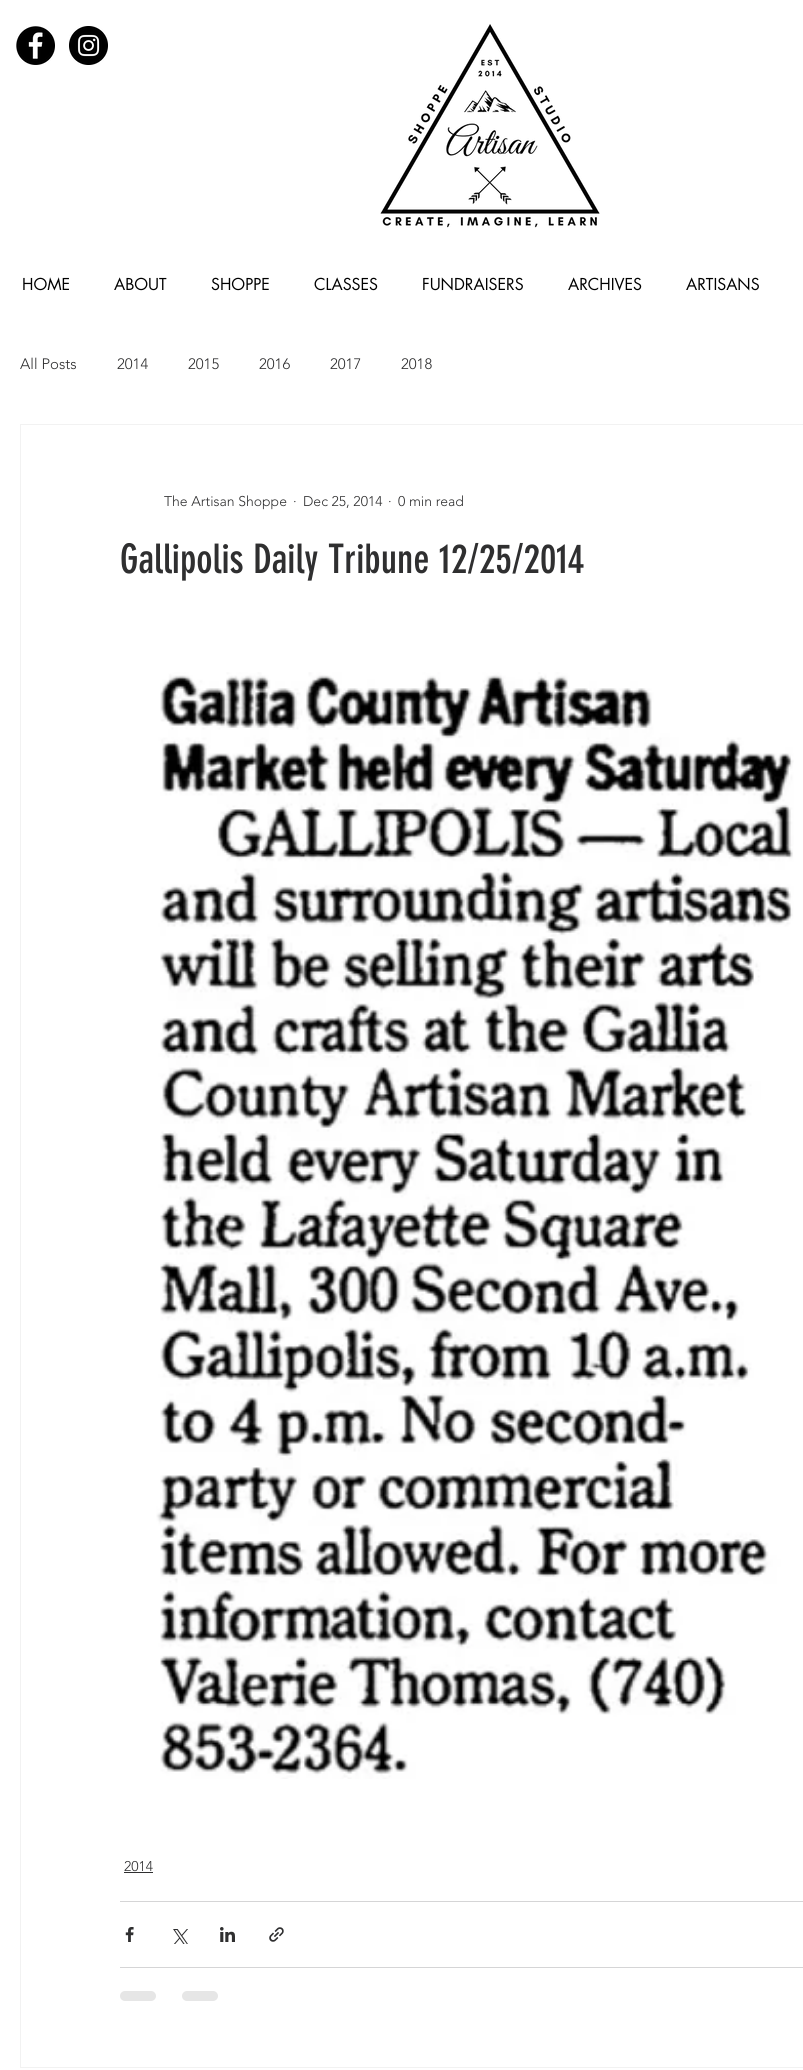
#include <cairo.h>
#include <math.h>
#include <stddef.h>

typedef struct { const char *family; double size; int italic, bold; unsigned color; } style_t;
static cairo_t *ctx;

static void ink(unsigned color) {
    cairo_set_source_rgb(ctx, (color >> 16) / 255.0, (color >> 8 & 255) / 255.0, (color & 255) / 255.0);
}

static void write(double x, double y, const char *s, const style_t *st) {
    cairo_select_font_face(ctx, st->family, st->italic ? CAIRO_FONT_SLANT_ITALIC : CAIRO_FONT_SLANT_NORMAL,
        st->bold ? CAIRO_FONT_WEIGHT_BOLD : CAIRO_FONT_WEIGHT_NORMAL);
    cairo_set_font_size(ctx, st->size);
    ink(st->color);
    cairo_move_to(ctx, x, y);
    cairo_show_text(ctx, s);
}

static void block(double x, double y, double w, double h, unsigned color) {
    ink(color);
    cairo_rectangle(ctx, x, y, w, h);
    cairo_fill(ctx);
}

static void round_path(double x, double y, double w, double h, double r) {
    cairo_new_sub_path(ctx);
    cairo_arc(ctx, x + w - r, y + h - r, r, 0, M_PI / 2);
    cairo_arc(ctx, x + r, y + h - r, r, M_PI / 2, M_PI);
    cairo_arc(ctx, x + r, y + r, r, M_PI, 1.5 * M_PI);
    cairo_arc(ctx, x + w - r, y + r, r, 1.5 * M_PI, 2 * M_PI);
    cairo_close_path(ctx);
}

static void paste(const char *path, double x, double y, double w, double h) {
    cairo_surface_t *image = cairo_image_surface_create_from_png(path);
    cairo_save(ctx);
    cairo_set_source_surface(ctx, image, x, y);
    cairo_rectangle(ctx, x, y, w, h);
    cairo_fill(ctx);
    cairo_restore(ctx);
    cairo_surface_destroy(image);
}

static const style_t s1 = {"futura", 16, 0, 0, 0x000000};
static const style_t s2 = {"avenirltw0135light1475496 Light", 15, 0, 0, 0x2f2f30};
static const style_t s3 = {"avenirltw0135light1475496 Light", 14, 0, 0, 0x2f2f30};
static const style_t s4 = {"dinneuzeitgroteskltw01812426", 40, 0, 0, 0x2f2f30};

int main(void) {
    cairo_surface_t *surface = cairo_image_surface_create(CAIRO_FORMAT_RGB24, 803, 2070);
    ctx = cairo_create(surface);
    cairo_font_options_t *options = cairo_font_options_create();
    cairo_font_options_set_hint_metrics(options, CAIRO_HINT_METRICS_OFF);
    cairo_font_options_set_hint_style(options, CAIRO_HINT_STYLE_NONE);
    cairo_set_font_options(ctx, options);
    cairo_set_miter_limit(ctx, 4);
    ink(0xffffff);
    cairo_paint(ctx);
    paste("pic1.png", 16, 26, 39, 39);
    paste("pic2.png", 69, 26, 39, 39);
    paste("pic3.png", 380, 24, 220, 204);
    write(22, 290, "HOME", &s1);
    write(114, 290, "ABOUT", &s1);
    write(211, 290, "SHOPPE", &s1);
    write(314, 290, "CLASSES", &s1);
    write(422, 290, "FUNDRAISERS", &s1);
    write(568, 290, "ARCHIVES", &s1);
    write(686, 290, "ARTISANS", &s1);
    write(20, 369, "All Posts", &s2);
    write(117, 369, "2014", &s2);
    write(188, 369, "2015", &s2);
    write(259, 369, "2016", &s2);
    write(330, 369, "2017", &s2);
    write(401, 369, "2018", &s2);
    cairo_rectangle(ctx, 20.5, 424.5, 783, 1643);
    ink(0xf2f2f2);
    cairo_set_line_width(ctx, 1);
    cairo_stroke(ctx);
    write(164, 506, "The Artisan Shoppe", &s3);
    write(293, 506, "·", &s3);
    write(303, 506, "Dec 25, 2014", &s3);
    write(388, 506, "·", &s3);
    write(398, 506, "0 min read", &s3);
    write(120, 573, "Gallipolis Daily Tribune 12/25/2014", &s4);
    paste("pic4.png", 156, 672, 638, 1107);
    write(124, 1871, "2014", &s3);
    block(124, 1872, 29, 1, 0x2f2f30);
    block(120, 1901, 683, 1, 0xd5d5d6);
    paste("pic5.png", 125, 1927, 9, 15);
    paste("pic6.png", 173, 1929, 15, 15);
    paste("pic7.png", 220, 1927, 15, 15);
    paste("pic8.png", 269, 1927, 15, 15);
    block(120, 1967, 683, 1, 0xd5d5d6);
    ink(0xe6e6e6);
    round_path(120, 1991, 36, 10, 5);
    cairo_fill(ctx);
    round_path(182, 1991, 36, 10, 5);
    cairo_fill(ctx);
    cairo_surface_write_to_png(surface, "screenshot.png");
    cairo_font_options_destroy(options);
    cairo_destroy(ctx);
    cairo_surface_destroy(surface);
    return 0;
}
